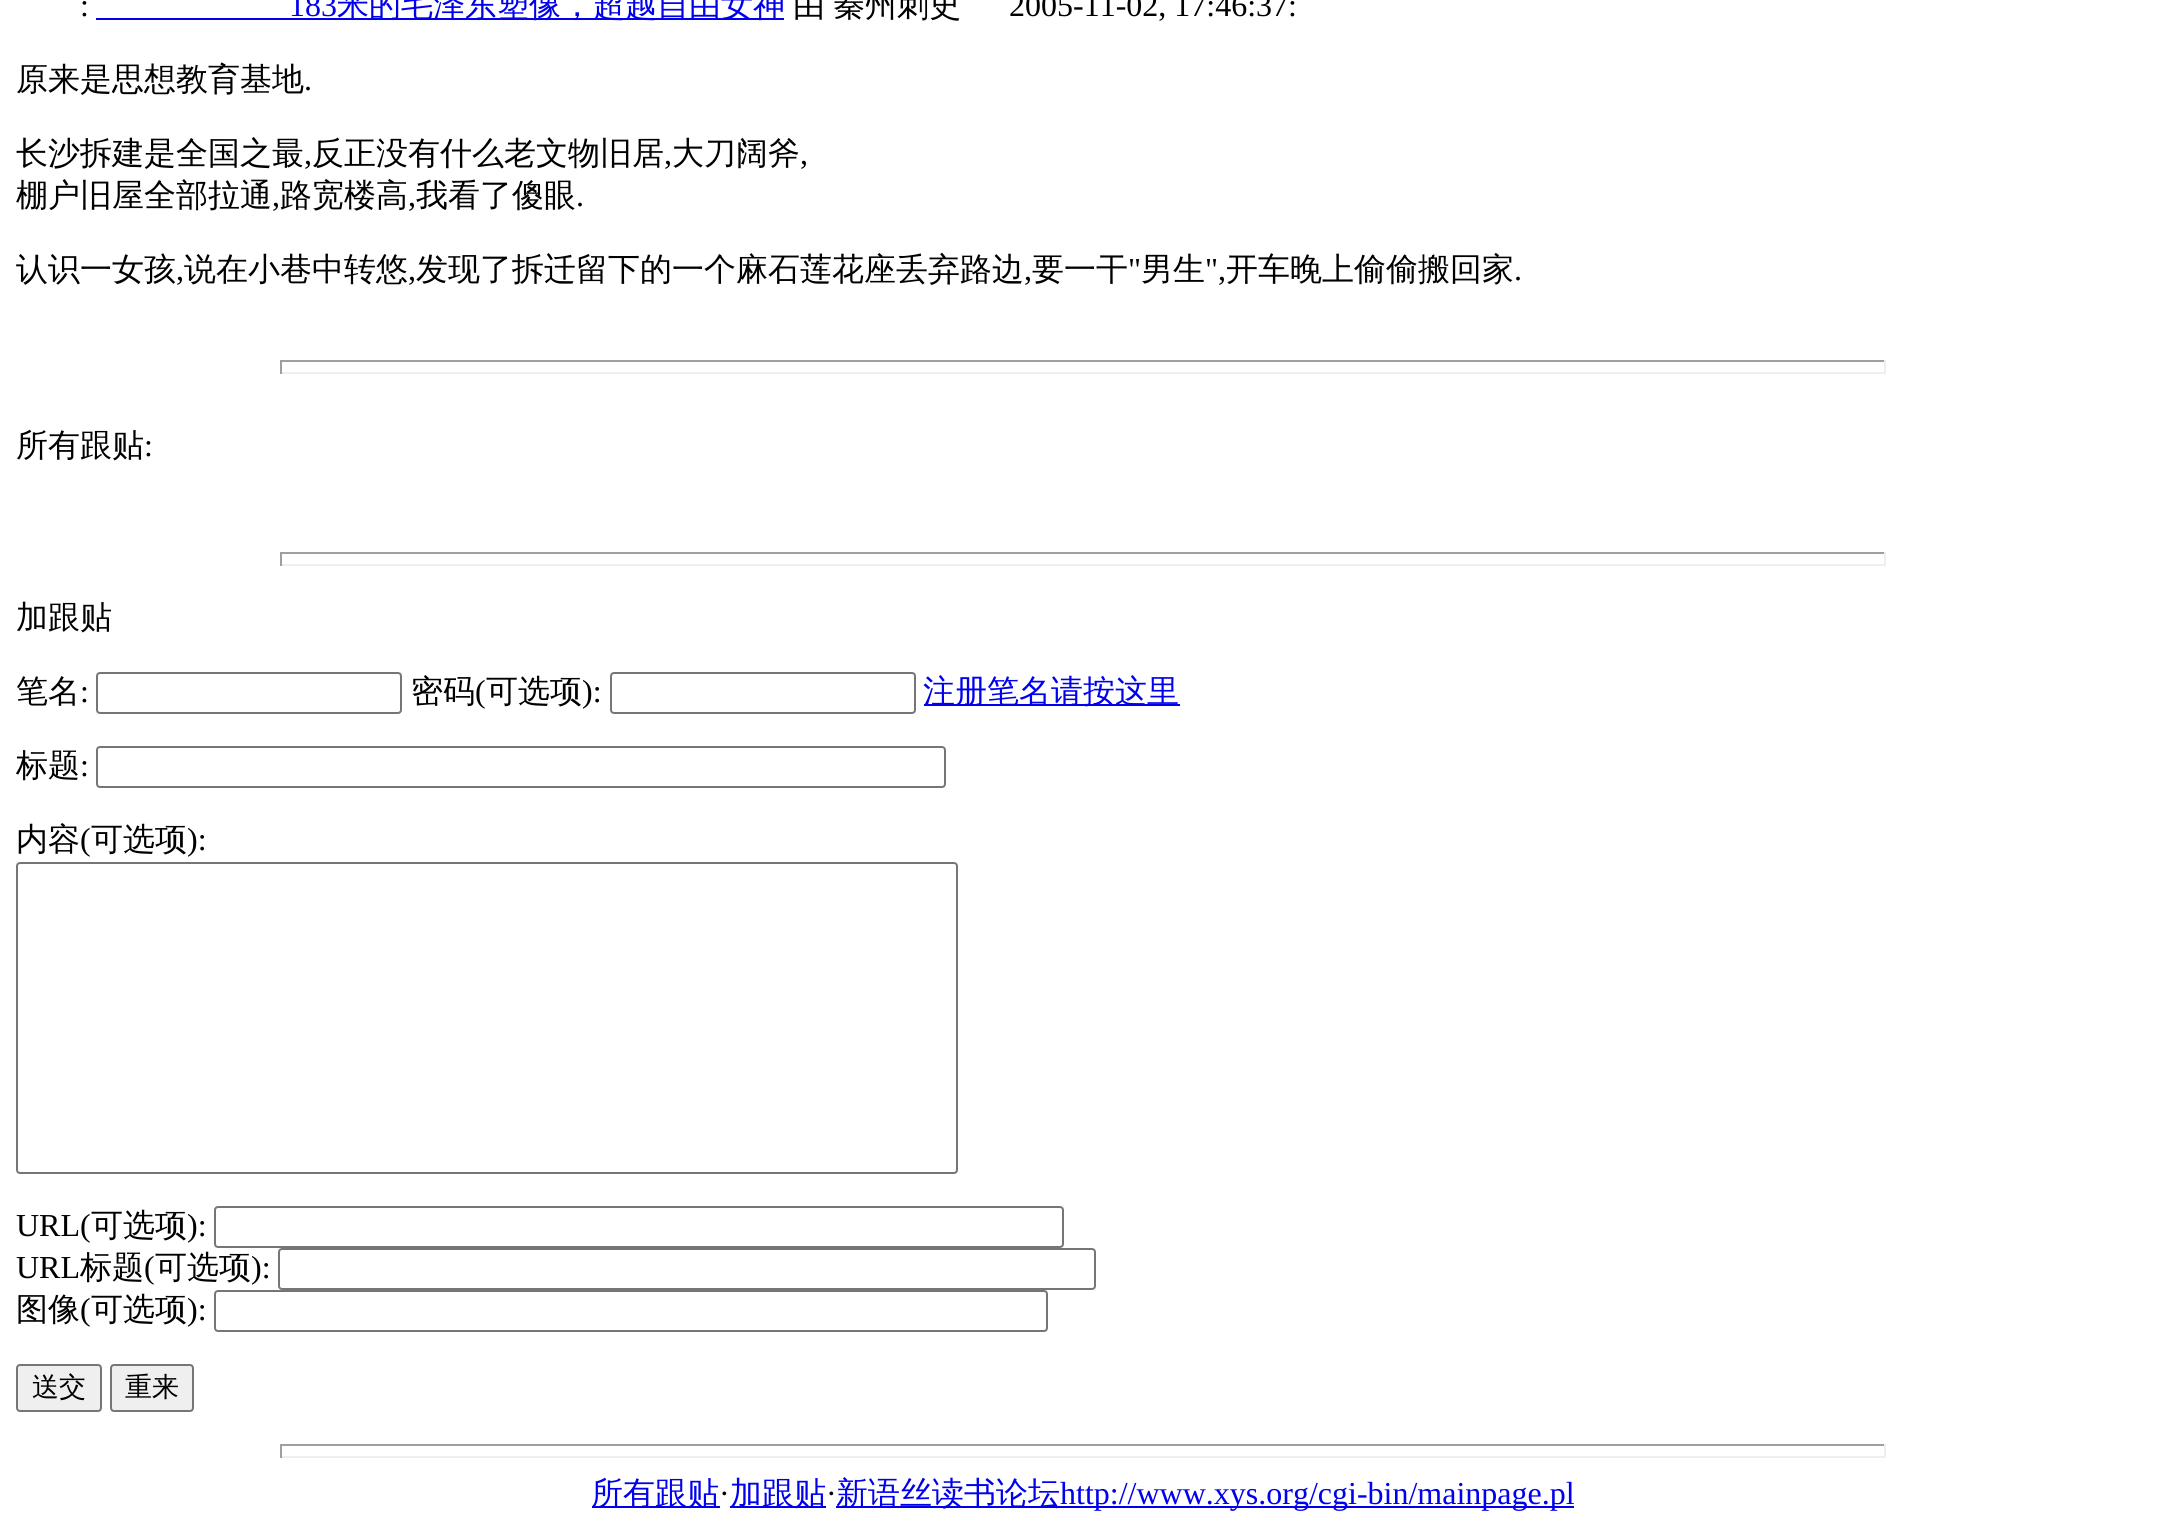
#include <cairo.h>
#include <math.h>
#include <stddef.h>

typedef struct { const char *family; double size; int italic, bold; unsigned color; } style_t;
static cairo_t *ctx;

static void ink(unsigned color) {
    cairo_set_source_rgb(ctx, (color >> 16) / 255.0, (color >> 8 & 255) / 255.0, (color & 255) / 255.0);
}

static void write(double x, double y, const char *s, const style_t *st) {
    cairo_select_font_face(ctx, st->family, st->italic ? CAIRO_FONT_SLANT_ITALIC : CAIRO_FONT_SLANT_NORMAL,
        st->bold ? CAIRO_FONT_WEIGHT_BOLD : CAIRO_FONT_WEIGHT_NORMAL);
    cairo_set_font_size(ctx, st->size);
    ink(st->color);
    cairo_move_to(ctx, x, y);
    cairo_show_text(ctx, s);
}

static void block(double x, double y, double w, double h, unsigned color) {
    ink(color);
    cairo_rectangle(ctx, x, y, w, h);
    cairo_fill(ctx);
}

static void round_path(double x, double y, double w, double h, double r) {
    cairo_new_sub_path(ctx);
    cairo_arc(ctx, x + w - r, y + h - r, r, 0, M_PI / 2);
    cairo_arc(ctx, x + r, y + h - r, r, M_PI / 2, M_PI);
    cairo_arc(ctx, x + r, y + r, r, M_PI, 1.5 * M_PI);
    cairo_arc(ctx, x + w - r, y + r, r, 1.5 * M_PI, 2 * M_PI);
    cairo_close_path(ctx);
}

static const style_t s1 = {"Liberation Serif", 32, 0, 0, 0x000000};
static const style_t s2 = {"Liberation Serif", 32, 0, 0, 0x0000ee};
static const style_t s3 = {"WenQuanYi Zen Hei Medium", 32, 0, 0, 0x0000ee};
static const style_t s4 = {"WenQuanYi Zen Hei Medium", 32, 0, 0, 0x000000};
static const style_t s5 = {"WenQuanYi Zen Hei Medium", 27, 0, 0, 0x000000};

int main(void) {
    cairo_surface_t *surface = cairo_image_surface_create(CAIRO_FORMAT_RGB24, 2165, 1532);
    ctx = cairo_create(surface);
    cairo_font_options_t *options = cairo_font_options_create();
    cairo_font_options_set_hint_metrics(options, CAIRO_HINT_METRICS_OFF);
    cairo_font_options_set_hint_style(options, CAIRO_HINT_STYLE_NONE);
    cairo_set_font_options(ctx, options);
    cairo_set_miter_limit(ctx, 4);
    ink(0xffffff);
    cairo_paint(ctx);
    write(80, 16, ":", &s1);
    write(289, 16, "183", &s2);
    block(96, 18, 688, 2, 0x0000ee);
    write(337, 16, "米的毛泽东塑像，超越自由女神", &s3);
    write(793, 16, "由", &s4);
    write(833, 16, "秦州刺史", &s4);
    write(1009, 16, "2005-11-02, 17:46:37:", &s1);
    write(16, 90, "原来是思想教育基地", &s4);
    write(304, 90, ".", &s1);
    write(16, 164, "长沙拆建是全国之最", &s4);
    write(304, 164, ",", &s1);
    write(312, 164, "反正没有什么老文物旧居", &s4);
    write(664, 164, ",", &s1);
    write(672, 164, "大刀阔斧", &s4);
    write(800, 164, ",", &s1);
    write(16, 206, "棚户旧屋全部拉通", &s4);
    write(272, 206, ",", &s1);
    write(280, 206, "路宽楼高", &s4);
    write(408, 206, ",", &s1);
    write(416, 206, "我看了傻眼", &s4);
    write(576, 206, ".", &s1);
    write(16, 280, "认识一女孩", &s4);
    write(176, 280, ",", &s1);
    write(184, 280, "说在小巷中转悠", &s4);
    write(408, 280, ",", &s1);
    write(416, 280, "发现了拆迁留下的一个麻石莲花座丢弃路边", &s4);
    write(1024, 280, ",", &s1);
    write(1032, 280, "要一干", &s4);
    write(1128, 280, "\"", &s1);
    write(1141, 280, "男生", &s4);
    write(1205, 280, "\",", &s1);
    write(1226, 280, "开车晚上偷偷搬回家", &s4);
    write(1514, 280, ".", &s1);
    block(280, 360, 1606, 2, 0x9f9f9f);
    block(1884, 360, 2, 14, 0xeeeeee);
    block(280, 372, 1606, 2, 0xeeeeee);
    block(280, 360, 2, 14, 0x9f9f9f);
    write(16, 456, "所有跟贴", &s4);
    write(144, 456, ":", &s1);
    block(280, 552, 1606, 2, 0x9f9f9f);
    block(1884, 552, 2, 14, 0xeeeeee);
    block(280, 564, 1606, 2, 0xeeeeee);
    block(280, 552, 2, 14, 0x9f9f9f);
    write(16, 628, "加跟贴", &s4);
    write(16, 702, "笔名", &s4);
    write(80, 702, ":", &s1);
    round_path(97, 673, 304, 40, 3);
    ink(0x767676);
    cairo_stroke(ctx);
    write(411, 702, "密码", &s4);
    write(475, 702, "(", &s1);
    write(486, 702, "可选项", &s4);
    write(582, 702, "):", &s1);
    round_path(611, 673, 304, 40, 3);
    ink(0x767676);
    cairo_stroke(ctx);
    block(924, 704, 256, 2, 0x0000ee);
    write(923, 702, "注册笔名请按这里", &s3);
    write(16, 776, "标题", &s4);
    write(80, 776, ":", &s1);
    round_path(97, 747, 848, 40, 3);
    ink(0x767676);
    cairo_stroke(ctx);
    write(16, 850, "内容", &s4);
    write(80, 850, "(", &s1);
    write(91, 850, "可选项", &s4);
    write(187, 850, "):", &s1);
    round_path(17, 863, 940, 310, 3);
    ink(0x767676);
    cairo_stroke(ctx);
    write(16, 1236, "URL(", &s1);
    write(91, 1236, "可选项", &s4);
    write(187, 1236, "):", &s1);
    round_path(215, 1207, 848, 40, 3);
    ink(0x767676);
    cairo_stroke(ctx);
    write(16, 1278, "URL", &s1);
    write(80, 1278, "标题", &s4);
    write(144, 1278, "(", &s1);
    write(155, 1278, "可选项", &s4);
    write(251, 1278, "):", &s1);
    round_path(279, 1249, 816, 40, 3);
    ink(0x767676);
    cairo_stroke(ctx);
    write(16, 1320, "图像", &s4);
    write(80, 1320, "(", &s1);
    write(91, 1320, "可选项", &s4);
    write(187, 1320, "):", &s1);
    round_path(215, 1291, 832, 40, 3);
    ink(0x767676);
    cairo_stroke(ctx);
    ink(0xefefef);
    round_path(17, 1365, 84, 46, 3);
    cairo_fill_preserve(ctx);
    ink(0x767676);
    cairo_stroke(ctx);
    write(32, 1396, "送交", &s5);
    ink(0xefefef);
    round_path(111, 1365, 82, 46, 3);
    cairo_fill_preserve(ctx);
    ink(0x767676);
    cairo_stroke(ctx);
    write(125, 1396, "重来", &s5);
    block(280, 1444, 1606, 2, 0x9f9f9f);
    block(1884, 1444, 2, 14, 0xeeeeee);
    block(280, 1456, 1606, 2, 0xeeeeee);
    block(280, 1444, 2, 14, 0x9f9f9f);
    block(592, 1506, 128, 2, 0x0000ee);
    write(591, 1504, "所有跟贴", &s3);
    write(719, 1504, "·", &s1);
    block(730, 1506, 96, 2, 0x0000ee);
    write(730, 1504, "加跟贴", &s3);
    write(826, 1504, "·", &s1);
    block(836, 1506, 738, 2, 0x0000ee);
    write(836, 1504, "新语丝读书论坛", &s3);
    write(1060, 1504, "http://www.xys.org/cgi-bin/mainpage.pl", &s2);
    cairo_surface_write_to_png(surface, "screenshot.png");
    cairo_font_options_destroy(options);
    cairo_destroy(ctx);
    cairo_surface_destroy(surface);
    return 0;
}
